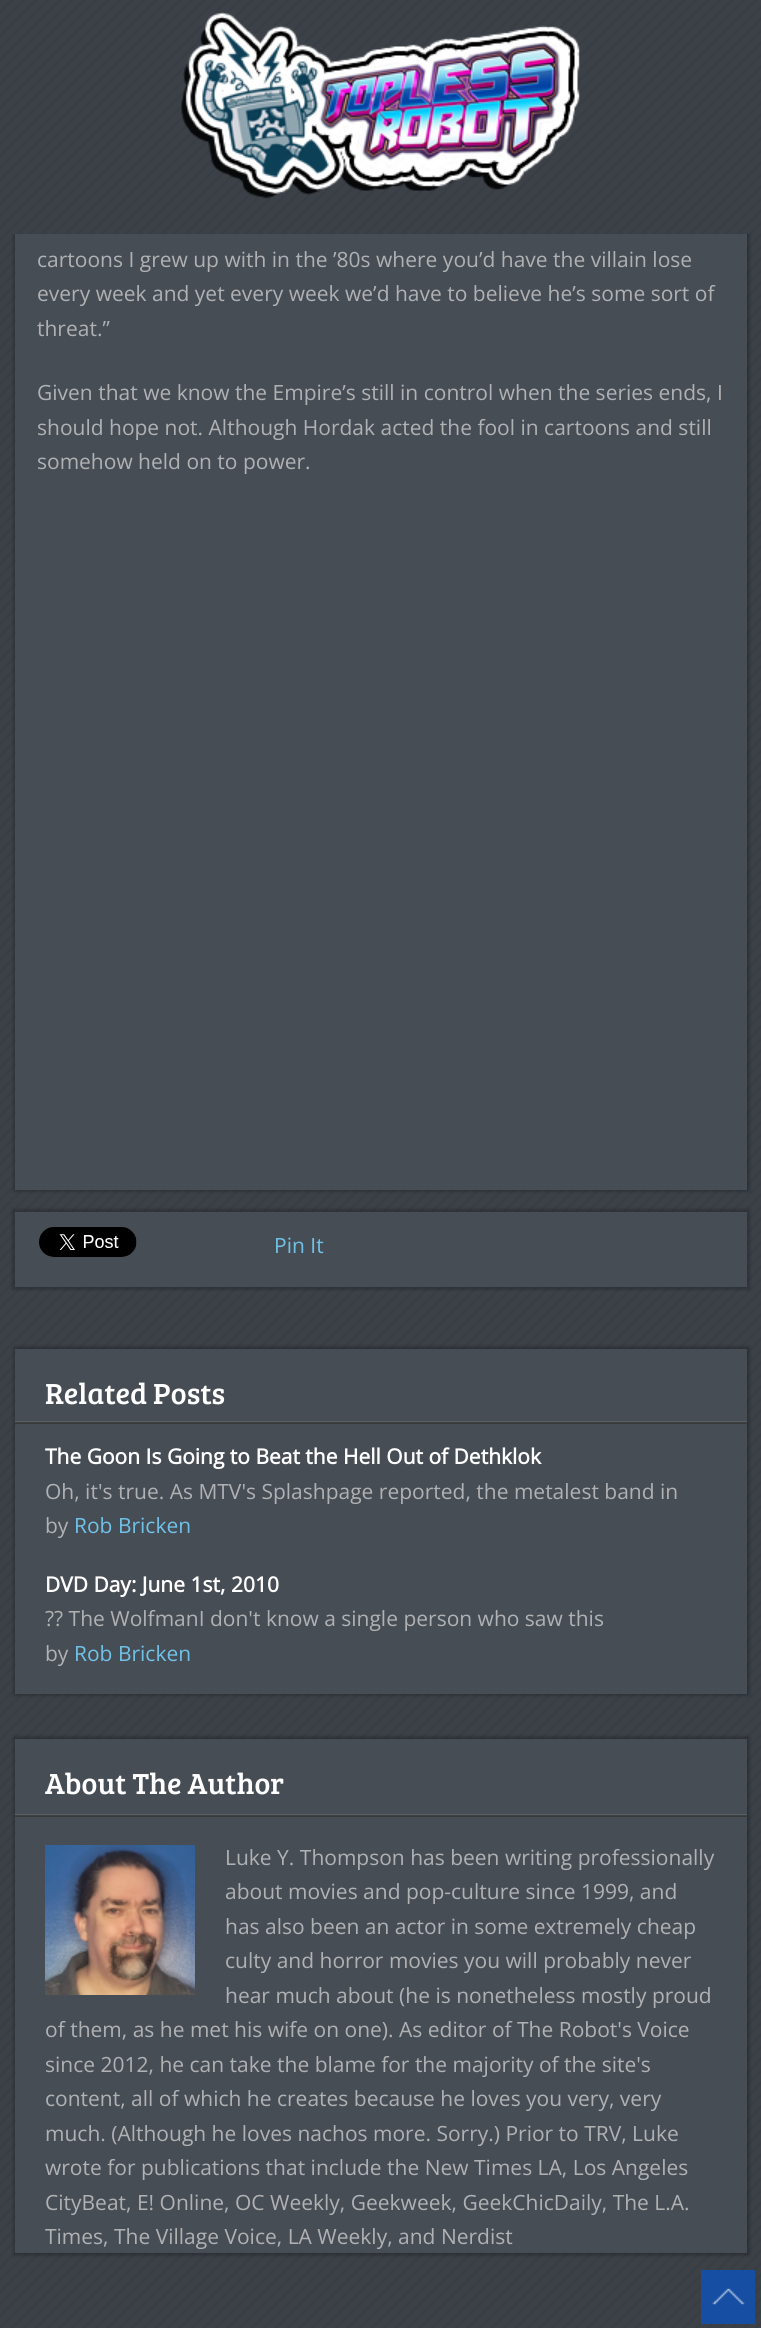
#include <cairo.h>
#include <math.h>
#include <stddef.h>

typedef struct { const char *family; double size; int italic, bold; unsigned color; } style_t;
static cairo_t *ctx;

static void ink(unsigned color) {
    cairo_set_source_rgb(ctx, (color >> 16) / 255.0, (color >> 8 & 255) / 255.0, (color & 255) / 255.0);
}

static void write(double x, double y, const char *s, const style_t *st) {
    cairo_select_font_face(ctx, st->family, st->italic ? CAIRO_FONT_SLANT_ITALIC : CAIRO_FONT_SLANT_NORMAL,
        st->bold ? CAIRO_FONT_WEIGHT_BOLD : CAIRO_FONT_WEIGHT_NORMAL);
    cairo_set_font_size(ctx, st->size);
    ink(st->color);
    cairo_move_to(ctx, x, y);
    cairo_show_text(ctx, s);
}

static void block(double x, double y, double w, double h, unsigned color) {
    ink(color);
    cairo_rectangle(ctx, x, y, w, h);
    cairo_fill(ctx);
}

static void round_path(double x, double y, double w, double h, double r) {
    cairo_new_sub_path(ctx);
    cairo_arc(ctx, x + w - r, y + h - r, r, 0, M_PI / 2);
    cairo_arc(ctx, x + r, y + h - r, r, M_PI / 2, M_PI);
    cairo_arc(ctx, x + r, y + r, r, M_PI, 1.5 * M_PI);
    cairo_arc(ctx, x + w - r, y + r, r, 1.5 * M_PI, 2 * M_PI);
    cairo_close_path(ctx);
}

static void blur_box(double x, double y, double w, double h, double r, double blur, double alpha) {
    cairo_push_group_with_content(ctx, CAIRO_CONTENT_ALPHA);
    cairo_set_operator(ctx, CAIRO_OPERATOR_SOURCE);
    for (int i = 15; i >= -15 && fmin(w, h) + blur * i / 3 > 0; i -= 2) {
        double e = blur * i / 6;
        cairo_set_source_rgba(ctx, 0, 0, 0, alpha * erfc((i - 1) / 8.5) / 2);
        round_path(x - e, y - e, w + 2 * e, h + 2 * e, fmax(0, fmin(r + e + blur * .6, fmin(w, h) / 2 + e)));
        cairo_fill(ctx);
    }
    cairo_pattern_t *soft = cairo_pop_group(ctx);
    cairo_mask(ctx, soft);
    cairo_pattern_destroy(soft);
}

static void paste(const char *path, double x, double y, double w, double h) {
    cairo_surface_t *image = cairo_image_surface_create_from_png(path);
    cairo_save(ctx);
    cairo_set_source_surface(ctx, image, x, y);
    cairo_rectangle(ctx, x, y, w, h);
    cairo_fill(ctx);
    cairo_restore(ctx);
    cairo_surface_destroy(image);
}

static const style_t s1 = {"Open Sans", 21, 0, 0, 0xb0b1b3};
static const style_t s2 = {"Open Sans", 21, 0, 0, 0x70c2e9};
static const style_t s3 = {"Bree Serif", 30, 0, 0, 0xffffff};
static const style_t s4 = {"Open Sans", 21, 0, 1, 0xffffff};

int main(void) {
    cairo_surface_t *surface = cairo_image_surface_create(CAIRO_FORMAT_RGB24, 761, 2328);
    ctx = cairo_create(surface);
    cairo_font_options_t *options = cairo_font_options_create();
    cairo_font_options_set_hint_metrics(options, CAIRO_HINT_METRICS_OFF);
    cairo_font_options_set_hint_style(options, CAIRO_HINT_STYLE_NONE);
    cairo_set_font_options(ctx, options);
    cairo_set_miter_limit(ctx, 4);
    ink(0xffffff);
    cairo_paint(ctx);
    paste("pic1.png", 0, 234, 761, 2094);
    ink(0x000000);
    blur_box(14, -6, 735, 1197, 0, 2, 0.3);
    paste("pic2.png", 0, 0, 761, 234);
    paste("pic3.png", 181, 12, 399, 187);
    block(15, 234, 732, 956, 0x474d55);
    write(37, 267, "cartoons I grew up with in the ’80s where you’d have the villain lose", &s1);
    write(37, 301, "every week and yet every week we’d have to believe he’s some sort of", &s1);
    write(37, 336, "threat.”", &s1);
    write(37, 400, "Given that we know the Empire’s still in control when the series ends, I", &s1);
    write(37, 435, "should hope not. Although Hordak acted the fool in cartoons and still", &s1);
    write(37, 469, "somehow held on to power.", &s1);
    ink(0x000000);
    blur_box(12, 1209, 738, 81, 0, 1.5, 0.2);
    block(15, 1212, 732, 75, 0x474d55);
    paste("pic4.png", 39, 1227, 98, 30);
    write(274, 1253, "Pin It", &s2);
    ink(0x000000);
    blur_box(14, 1347, 735, 348, 0, 2, 0.3);
    block(15, 1349, 732, 345, 0x474d55);
    write(45, 1404, "Related Posts", &s3);
    block(15, 1421, 732, 2, 0x595f66);
    cairo_set_source_rgba(ctx, 0.2, 0.2, 0.2, 0.7);
    cairo_rectangle(ctx, 15, 1422, 732, 2);
    cairo_fill(ctx);
    write(45, 1464, "The Goon Is Going to Beat the Hell Out of Dethklok", &s4);
    write(45, 1499, "Oh, it's true. As MTV's Splashpage reported, the metalest band in", &s1);
    write(45, 1533, "by", &s1);
    write(74, 1533, "Rob Bricken", &s2);
    write(45, 1592, "DVD Day: June 1st, 2010", &s4);
    write(45, 1626, "?\077 The WolfmanI don't know a single person who saw this", &s1);
    write(45, 1661, "by", &s1);
    write(74, 1661, "Rob Bricken", &s2);
    ink(0x000000);
    blur_box(14, 1737, 735, 518, 0, 2, 0.3);
    block(15, 1739, 732, 514, 0x474d55);
    write(45, 1794, "About The Author", &s3);
    block(15, 1814, 732, 2, 0x595f66);
    cairo_set_source_rgba(ctx, 0.2, 0.2, 0.2, 0.7);
    cairo_rectangle(ctx, 15, 1815, 732, 2);
    cairo_fill(ctx);
    paste("pic5.png", 45, 1845, 150, 150);
    write(225, 1865, "Luke Y. Thompson has been writing professionally", &s1);
    write(225, 1899, "about movies and pop-culture since 1999, and", &s1);
    write(225, 1934, "has also been an actor in some extremely cheap", &s1);
    write(225, 1968, "culty and horror movies you will probably never", &s1);
    write(225, 2003, "hear much about (he is nonetheless mostly proud", &s1);
    write(45, 2037, "of them, as he met his wife on one). As editor of The Robot's Voice", &s1);
    write(45, 2072, "since 2012, he can take the blame for the majority of the site's", &s1);
    write(45, 2106, "content, all of which he creates because he loves you very, very", &s1);
    write(45, 2141, "much. (Although he loves nachos more. Sorry.) Prior to TRV, Luke", &s1);
    write(45, 2175, "wrote for publications that include the New Times LA, Los Angeles", &s1);
    write(45, 2210, "CityBeat, E! Online, OC Weekly, Geekweek, GeekChicDaily, The L.A.", &s1);
    write(45, 2244, "Times, The Village Voice, LA Weekly, and Nerdist", &s1);
    block(701, 2270, 54, 54, 0x154ea3);
    paste("pic6.png", 712, 2288, 33, 17);
    cairo_surface_write_to_png(surface, "screenshot.png");
    cairo_font_options_destroy(options);
    cairo_destroy(ctx);
    cairo_surface_destroy(surface);
    return 0;
}
